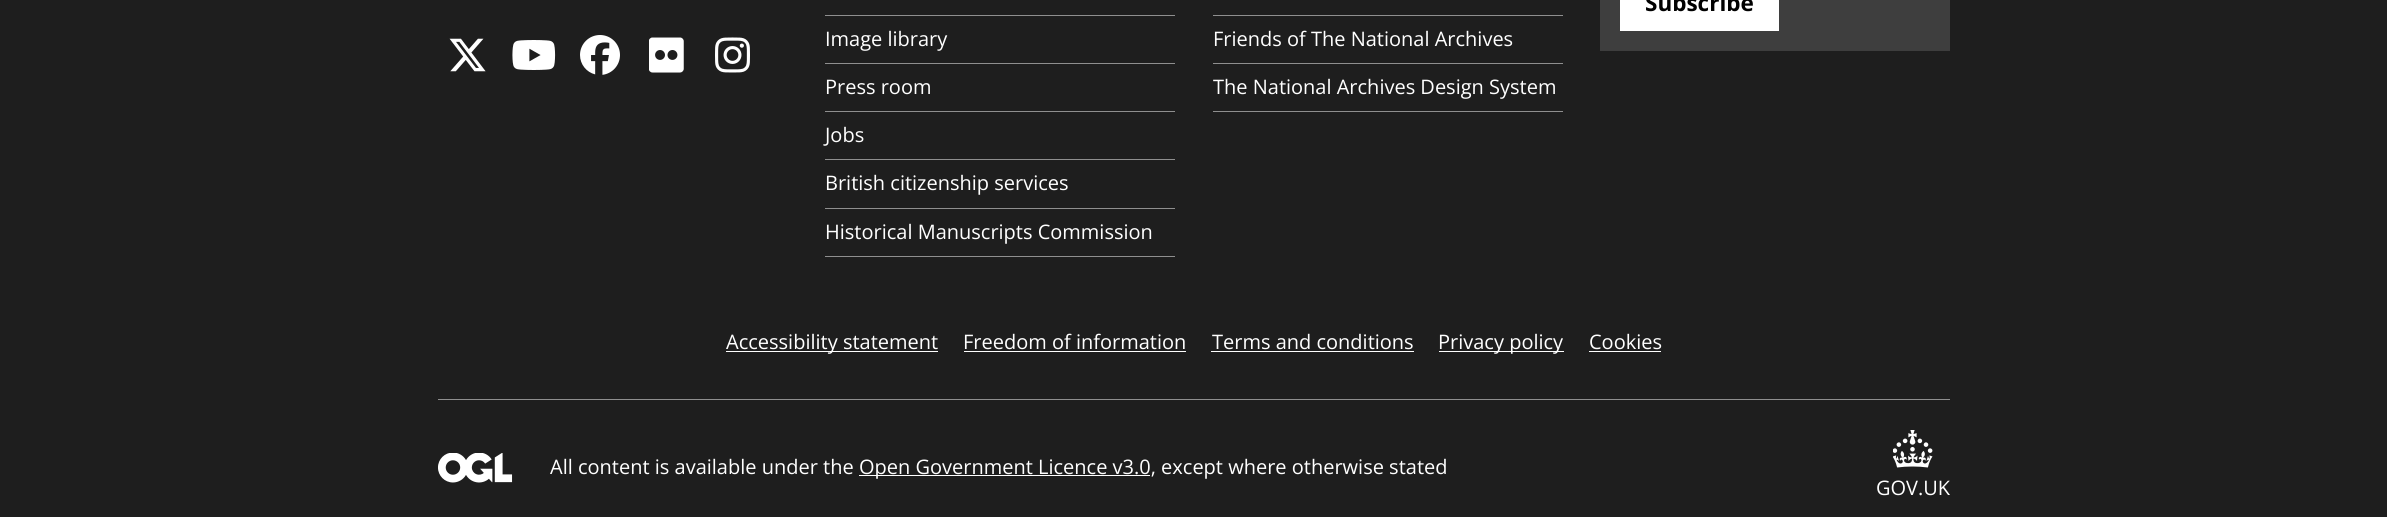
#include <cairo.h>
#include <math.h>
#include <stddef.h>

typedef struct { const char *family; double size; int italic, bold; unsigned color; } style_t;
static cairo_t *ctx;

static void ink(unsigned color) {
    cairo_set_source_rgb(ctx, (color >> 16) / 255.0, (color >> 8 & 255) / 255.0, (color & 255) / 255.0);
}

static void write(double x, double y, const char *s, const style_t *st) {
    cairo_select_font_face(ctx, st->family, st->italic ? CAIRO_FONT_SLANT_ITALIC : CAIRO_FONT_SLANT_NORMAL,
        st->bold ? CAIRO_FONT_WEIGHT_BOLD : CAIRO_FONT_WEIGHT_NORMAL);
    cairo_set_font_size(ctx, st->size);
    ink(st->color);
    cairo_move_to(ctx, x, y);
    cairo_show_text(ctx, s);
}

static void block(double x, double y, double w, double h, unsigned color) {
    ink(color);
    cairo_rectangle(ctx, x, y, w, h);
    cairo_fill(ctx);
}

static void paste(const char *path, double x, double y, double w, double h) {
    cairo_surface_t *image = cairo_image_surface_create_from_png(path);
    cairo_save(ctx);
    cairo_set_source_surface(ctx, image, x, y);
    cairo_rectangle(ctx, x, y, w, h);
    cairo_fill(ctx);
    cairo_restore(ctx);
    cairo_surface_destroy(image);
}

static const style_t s1 = {"Open Sans", 22.5, 0, 1, 0x010101};
static const style_t s2 = {"Open Sans", 20, 0, 0, 0xffffff};

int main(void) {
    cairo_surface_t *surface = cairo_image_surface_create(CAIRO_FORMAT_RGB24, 2387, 517);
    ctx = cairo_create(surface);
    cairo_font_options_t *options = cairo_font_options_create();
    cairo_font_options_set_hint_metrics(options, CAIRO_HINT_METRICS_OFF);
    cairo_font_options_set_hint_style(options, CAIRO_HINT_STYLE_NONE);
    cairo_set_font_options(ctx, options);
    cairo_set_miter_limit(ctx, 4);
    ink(0x1e1e1e);
    cairo_paint(ctx);
    block(1600, 0, 350, 51, 0x3e3e3e);
    block(1620, 0, 159, 31, 0xffffff);
    write(1645, 11, "Subscribe", &s1);
    paste("pic1.png", 449, 38, 37, 34);
    paste("pic2.png", 512, 40, 44, 30);
    paste("pic3.png", 580, 35, 40, 40);
    paste("pic4.png", 649, 37, 35, 36);
    paste("pic5.png", 715, 37, 35, 36);
    block(825, 15, 350, 1, 0x8f8f8f);
    block(825, 63, 350, 1, 0x8f8f8f);
    write(825, 46, "Image library", &s2);
    block(825, 111, 350, 1, 0x8f8f8f);
    write(825, 94, "Press room", &s2);
    block(825, 159, 350, 1, 0x8f8f8f);
    write(825, 142, "Jobs", &s2);
    block(825, 208, 350, 1, 0x8f8f8f);
    write(825, 190, "British citizenship services", &s2);
    block(825, 256, 350, 1, 0x8f8f8f);
    write(825, 239, "Historical Manuscripts Commission", &s2);
    block(1213, 15, 350, 1, 0x8f8f8f);
    block(1213, 63, 350, 1, 0x8f8f8f);
    write(1213, 46, "Friends of The National Archives", &s2);
    block(1213, 111, 350, 1, 0x8f8f8f);
    write(1213, 94, "The National Archives Design System", &s2);
    block(726, 351, 212, 1, 0xffffff);
    write(726, 349, "Accessibility statement", &s2);
    write(963, 349, "Freedom of information", &s2);
    block(964, 351, 222, 1, 0xffffff);
    write(1212, 349, "Terms and conditions", &s2);
    block(1211, 351, 203, 1, 0xffffff);
    block(1439, 351, 125, 1, 0xffffff);
    write(1438, 349, "Privacy policy", &s2);
    write(1589, 349, "Cookies", &s2);
    block(1589, 351, 72, 1, 0xffffff);
    block(438, 399, 1512, 1, 0x8f8f8f);
    paste("pic6.png", 438, 453, 75, 30);
    write(550, 474, "All content is available under the", &s2);
    block(859, 475, 291, 1, 0xffffff);
    write(859, 474, "Open Government Licence v3.0, except where otherwise stated", &s2);
    paste("pic7.png", 1893, 430, 40, 38);
    write(1876, 495, "GOV.UK", &s2);
    cairo_surface_write_to_png(surface, "screenshot.png");
    cairo_font_options_destroy(options);
    cairo_destroy(ctx);
    cairo_surface_destroy(surface);
    return 0;
}
